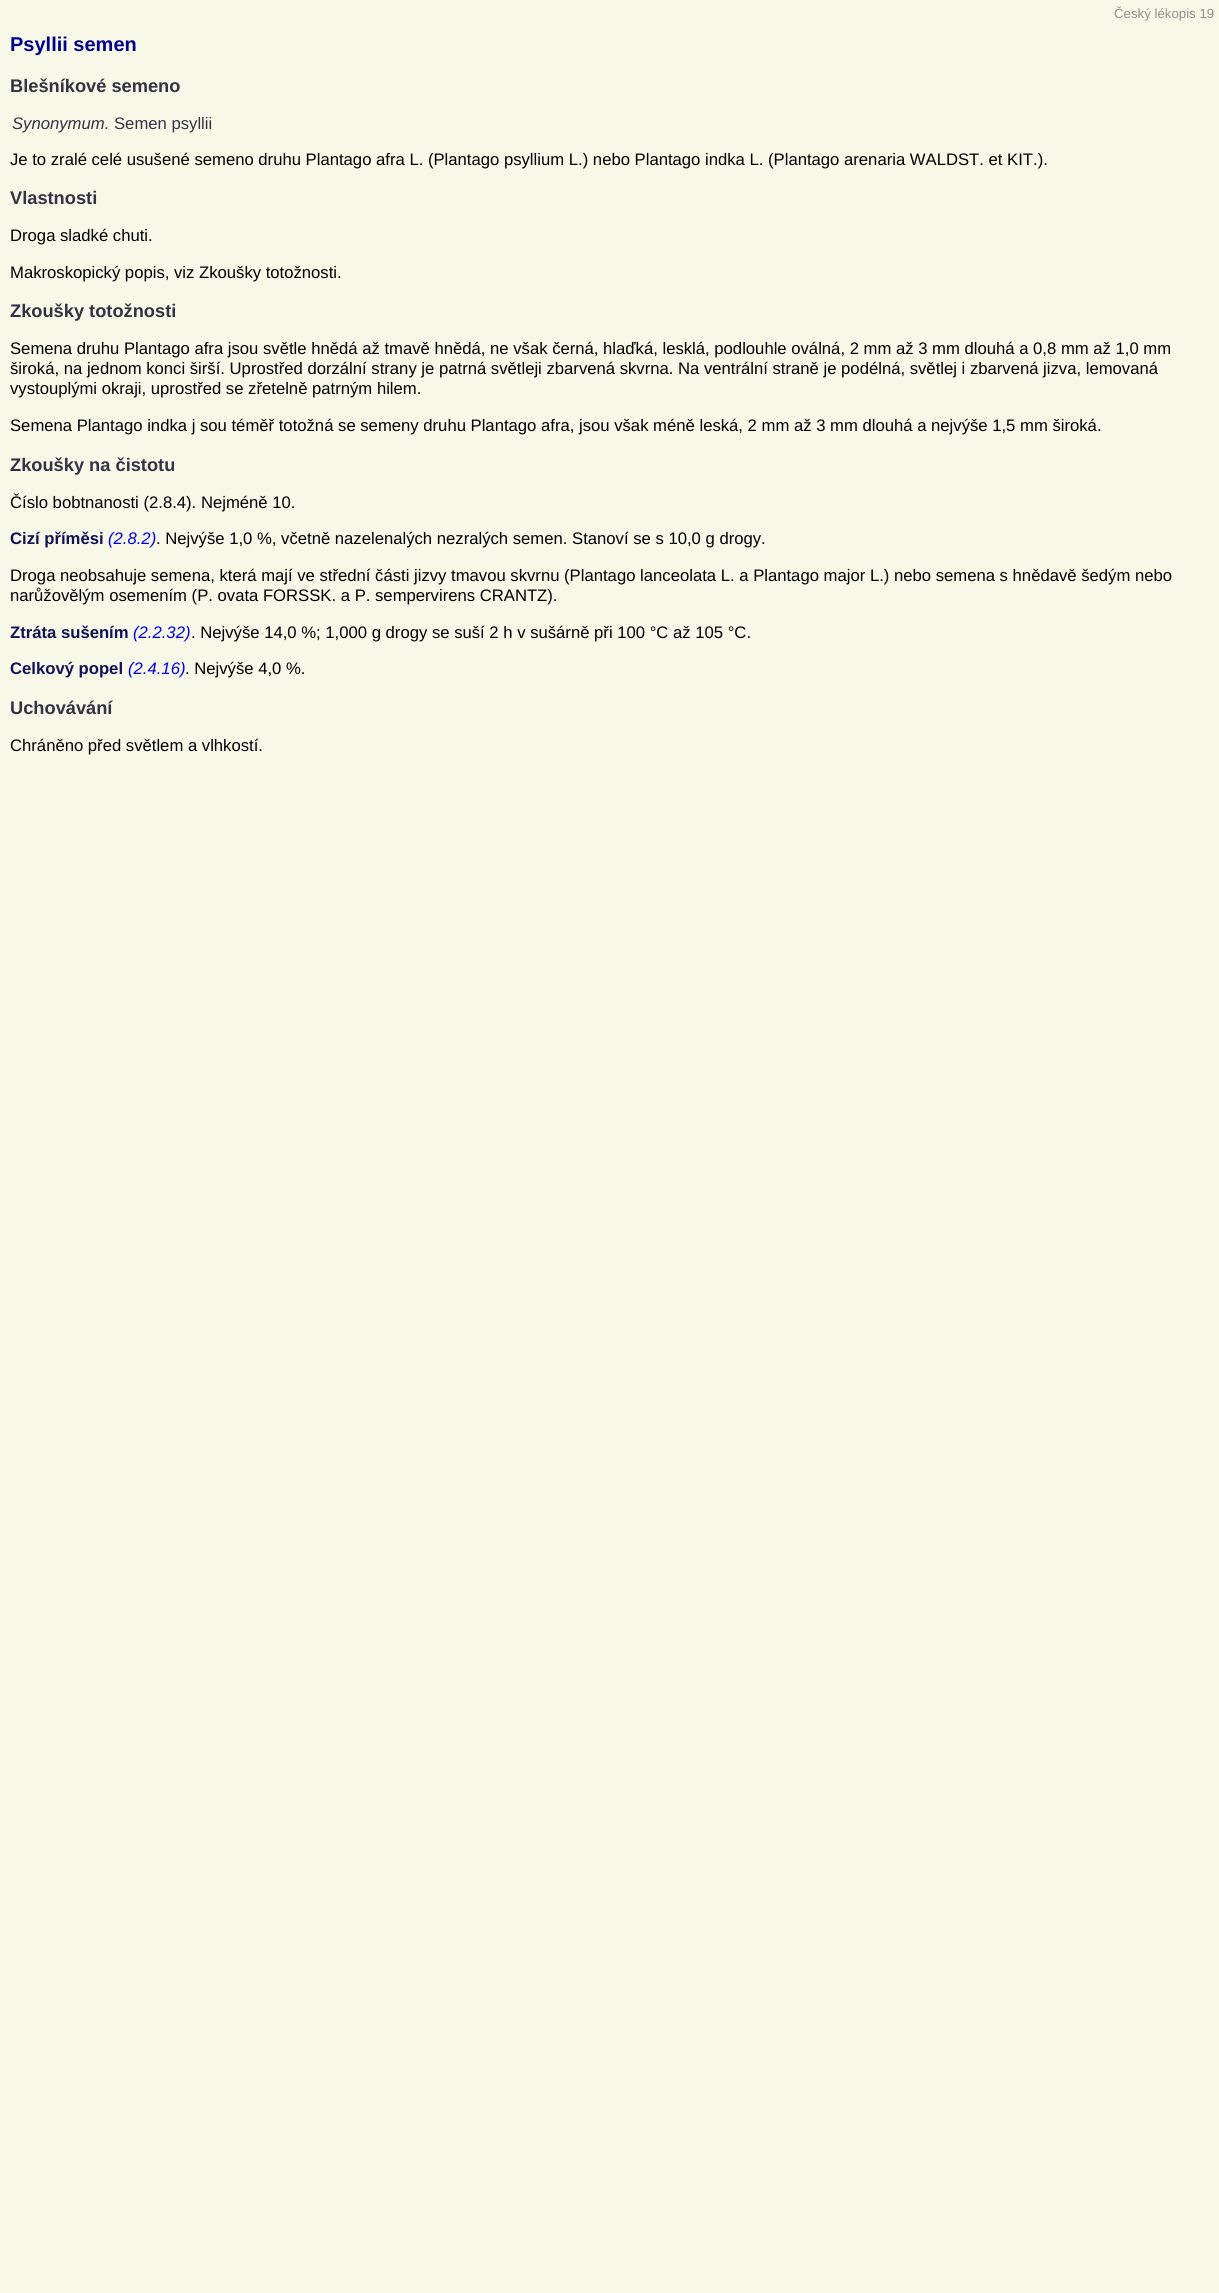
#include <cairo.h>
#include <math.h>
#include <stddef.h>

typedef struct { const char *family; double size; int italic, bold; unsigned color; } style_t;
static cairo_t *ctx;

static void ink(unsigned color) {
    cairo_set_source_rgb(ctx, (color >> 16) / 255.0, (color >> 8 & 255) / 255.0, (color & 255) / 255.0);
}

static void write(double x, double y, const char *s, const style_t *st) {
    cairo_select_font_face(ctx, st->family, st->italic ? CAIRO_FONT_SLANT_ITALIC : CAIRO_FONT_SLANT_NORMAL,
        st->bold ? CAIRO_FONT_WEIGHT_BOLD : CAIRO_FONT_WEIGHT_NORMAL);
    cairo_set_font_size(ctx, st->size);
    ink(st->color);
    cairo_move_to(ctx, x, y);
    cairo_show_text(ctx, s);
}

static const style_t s1 = {"Liberation Sans", 13.25, 0, 0, 0x909090};
static const style_t s2 = {"Liberation Sans", 20, 0, 1, 0x00008b};
static const style_t s3 = {"Liberation Sans", 18.25, 0, 1, 0x333344};
static const style_t s4 = {"Liberation Sans", 16.67, 1, 0, 0x333344};
static const style_t s5 = {"Liberation Sans", 16.67, 0, 0, 0x333344};
static const style_t s6 = {"Liberation Sans", 16.67, 0, 0, 0x000000};
static const style_t s7 = {"Liberation Sans", 16.67, 0, 1, 0x111155};
static const style_t s8 = {"Liberation Sans", 16.67, 1, 0, 0x0000ee};

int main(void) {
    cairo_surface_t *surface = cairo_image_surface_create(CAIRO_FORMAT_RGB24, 1219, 2293);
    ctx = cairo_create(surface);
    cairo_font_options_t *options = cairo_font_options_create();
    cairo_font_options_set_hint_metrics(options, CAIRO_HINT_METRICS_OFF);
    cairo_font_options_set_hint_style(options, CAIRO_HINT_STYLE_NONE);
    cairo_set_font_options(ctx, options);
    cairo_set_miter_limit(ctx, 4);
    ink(0xf8f8e8);
    cairo_paint(ctx);
    write(1114, 18, "Český lékopis 19", &s1);
    write(10, 51, "Psyllii semen", &s2);
    write(10, 92, "Blešníkové semeno", &s3);
    write(12, 129, "Synonymum.", &s4);
    write(114, 129, "Semen psyllii", &s5);
    write(10, 165, "Je to zralé celé usušené semeno druhu Plantago afra L. (Plantago psyllium L.) nebo Plantago indka L. (Plantago arenaria WALDST. et KIT.).", &s6);
    write(10, 204, "Vlastnosti", &s3);
    write(10, 241, "Droga sladké chuti.", &s6);
    write(10, 278, "Makroskopický popis, viz Zkoušky totožnosti.", &s6);
    write(10, 317, "Zkoušky totožnosti", &s3);
    write(10, 354, "Semena druhu Plantago afra jsou světle hnědá až tmavě hnědá, ne však černá, hlaďká, lesklá, podlouhle oválná, 2 mm až 3 mm dlouhá a 0,8 mm až 1,0 mm", &s6);
    write(10, 374, "široká, na jednom konci širší. Uprostřed dorzální strany je patrná světleji zbarvená skvrna. Na ventrální straně je podélná, světlej i zbarvená jizva, lemovaná", &s6);
    write(10, 394, "vystouplými okraji, uprostřed se zřetelně patrným hilem.", &s6);
    write(10, 431, "Semena Plantago indka j sou téměř totožná se semeny druhu Plantago afra, jsou však méně leská, 2 mm až 3 mm dlouhá a nejvýše 1,5 mm široká.", &s6);
    write(10, 471, "Zkoušky na čistotu", &s3);
    write(10, 508, "Číslo bobtnanosti (2.8.4). Nejméně 10.", &s6);
    write(10, 544, "Cizí příměsi", &s7);
    write(108, 544, "(2.8.2)", &s8);
    write(156, 544, ". Nejvýše 1,0 %, včetně nazelenalých nezralých semen. Stanoví se s 10,0 g drogy.", &s6);
    write(10, 581, "Droga neobsahuje semena, která mají ve střední části jizvy tmavou skvrnu (Plantago lanceolata L. a Plantago major L.) nebo semena s hnědavě šedým nebo", &s6);
    write(10, 601, "narůžovělým osemením (P. ovata FORSSK. a P. sempervirens CRANTZ).", &s6);
    write(10, 638, "Ztráta sušením", &s7);
    write(133, 638, "(2.2.32)", &s8);
    write(191, 638, ". Nejvýše 14,0 %; 1,000 g drogy se suší 2 h v sušárně při 100 °C až 105 °C.", &s6);
    write(10, 674, "Celkový popel", &s7);
    write(128, 674, "(2.4.16)", &s8);
    write(185, 674, ". Nejvýše 4,0 %.", &s6);
    write(10, 714, "Uchovávání", &s3);
    write(10, 751, "Chráněno před světlem a vlhkostí.", &s6);
    cairo_surface_write_to_png(surface, "screenshot.png");
    cairo_font_options_destroy(options);
    cairo_destroy(ctx);
    cairo_surface_destroy(surface);
    return 0;
}
